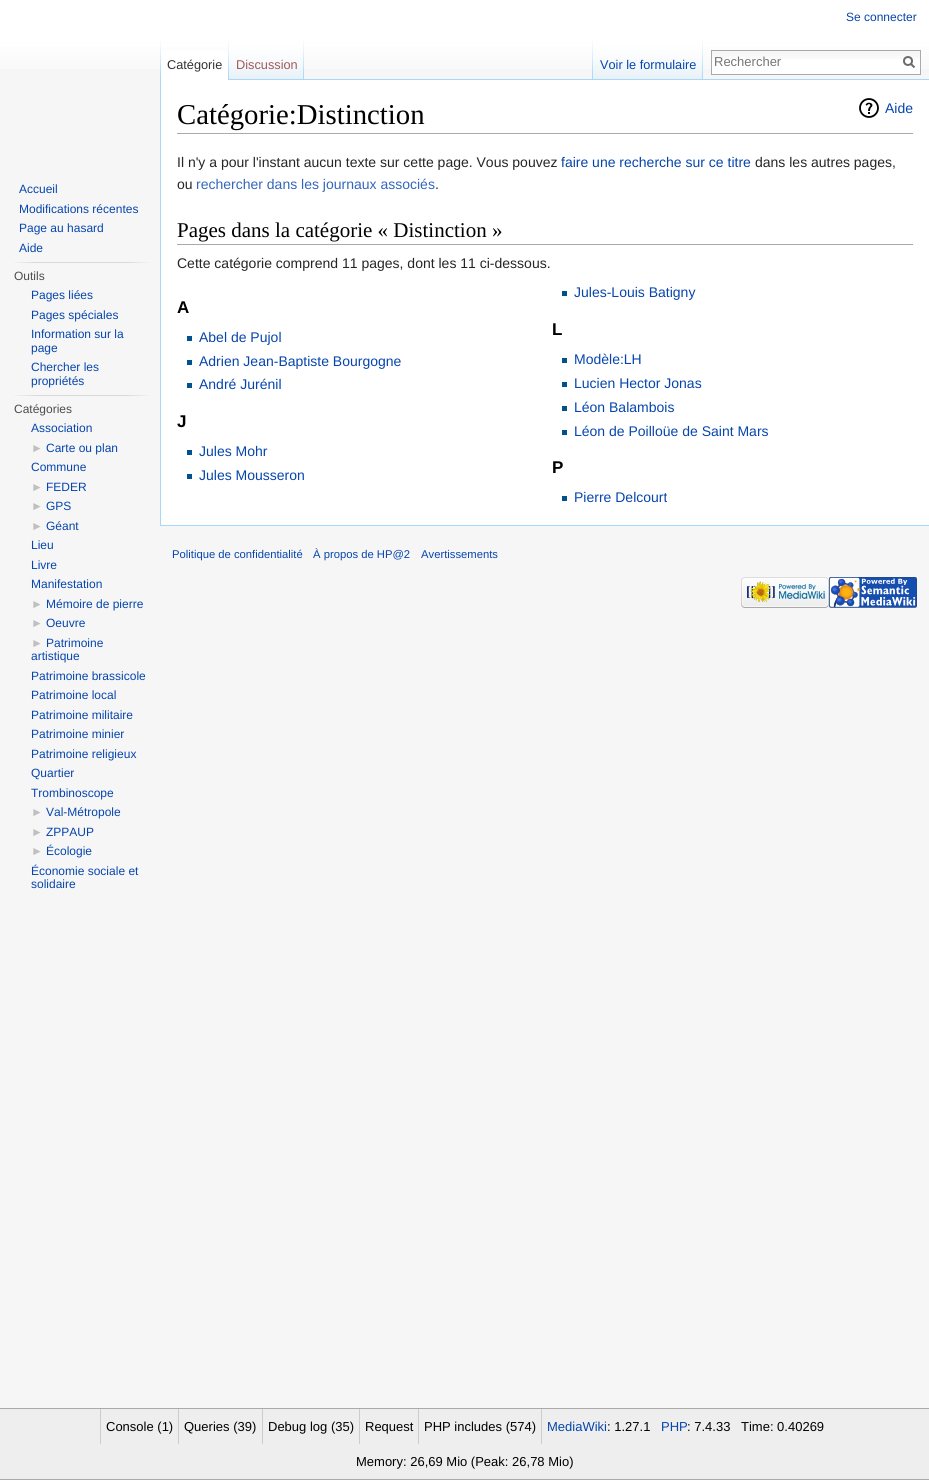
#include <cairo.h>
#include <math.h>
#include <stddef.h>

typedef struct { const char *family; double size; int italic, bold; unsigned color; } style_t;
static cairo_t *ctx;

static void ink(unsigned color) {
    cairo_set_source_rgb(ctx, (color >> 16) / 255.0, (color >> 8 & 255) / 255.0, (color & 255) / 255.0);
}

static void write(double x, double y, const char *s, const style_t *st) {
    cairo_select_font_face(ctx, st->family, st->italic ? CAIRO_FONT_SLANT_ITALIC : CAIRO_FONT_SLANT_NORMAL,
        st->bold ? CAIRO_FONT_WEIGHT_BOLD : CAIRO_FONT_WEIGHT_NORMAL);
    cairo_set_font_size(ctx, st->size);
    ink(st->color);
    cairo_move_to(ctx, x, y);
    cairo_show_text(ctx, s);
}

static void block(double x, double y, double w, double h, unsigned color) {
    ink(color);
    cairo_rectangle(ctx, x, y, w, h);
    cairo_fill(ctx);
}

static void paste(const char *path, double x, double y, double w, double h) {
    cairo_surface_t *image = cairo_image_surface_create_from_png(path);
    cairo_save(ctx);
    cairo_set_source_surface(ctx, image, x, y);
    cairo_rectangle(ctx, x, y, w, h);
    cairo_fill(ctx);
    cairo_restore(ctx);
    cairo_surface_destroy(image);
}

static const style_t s1 = {"Liberation Sans", 12, 0, 0, 0x0645ad};
static const style_t s2 = {"Liberation Sans", 12.75, 0, 0, 0x333333};
static const style_t s3 = {"Liberation Sans", 12.75, 0, 0, 0xa55858};
static const style_t s4 = {"Liberation Sans", 12.75, 0, 0, 0x0645ad};
static const style_t s5 = {"Liberation Sans", 13, 0, 0, 0x757575};
static const style_t s6 = {"Liberation Sans", 12, 0, 0, 0x4d4d4d};
static const style_t s7 = {"Liberation Sans", 12, 0, 0, 0xc0c0c0};
static const style_t s8 = {"Liberation Serif", 28.75, 0, 0, 0x000000};
static const style_t s9 = {"Liberation Sans", 14, 0, 0, 0x0645ad};
static const style_t s10 = {"Liberation Sans", 14, 0, 0, 0x252525};
static const style_t s11 = {"Liberation Sans", 14, 0, 0, 0x3366bb};
static const style_t s12 = {"Liberation Serif", 21, 0, 0, 0x000000};
static const style_t s13 = {"Liberation Sans", 17, 0, 1, 0x000000};
static const style_t s14 = {"Liberation Sans", 11.25, 0, 0, 0x0645ad};
static const style_t s15 = {"Liberation Sans", 13, 0, 0, 0x000000};
static const style_t s16 = {"Liberation Sans", 13, 0, 0, 0x0645ad};

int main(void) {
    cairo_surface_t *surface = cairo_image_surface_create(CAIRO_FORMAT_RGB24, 929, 1480);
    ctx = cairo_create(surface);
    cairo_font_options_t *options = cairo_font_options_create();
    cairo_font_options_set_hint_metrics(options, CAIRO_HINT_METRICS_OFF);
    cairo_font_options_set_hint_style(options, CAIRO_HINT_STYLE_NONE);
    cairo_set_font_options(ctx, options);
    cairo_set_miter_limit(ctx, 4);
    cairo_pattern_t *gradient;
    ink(0xf6f6f6);
    cairo_paint(ctx);
    gradient = cairo_pattern_create_linear(465, 0, 465, 80);
    cairo_pattern_add_color_stop_rgba(gradient, 0.5, 1, 1, 1, 1);
    cairo_pattern_add_color_stop_rgba(gradient, 1, 0.965, 0.965, 0.965, 1);
    cairo_set_source(ctx, gradient);
    cairo_pattern_destroy(gradient);
    cairo_rectangle(ctx, 0, 0, 929, 69);
    cairo_fill(ctx);
    write(846, 21, "Se connecter", &s1);
    paste("pic1.png", 160, 40, 1, 39);
    block(161, 51, 67, 29, 0xffffff);
    paste("pic2.png", 228, 40, 1, 40);
    write(167, 69, "Catégorie", &s2);
    paste("pic3.png", 229, 40, 75, 40);
    paste("pic4.png", 303, 40, 1, 39);
    write(236, 69, "Discussion", &s3);
    paste("pic1.png", 592, 40, 1, 39);
    block(304, 79, 625, 1, 0xa7d7f9);
    paste("pic5.png", 593, 40, 110, 40);
    paste("pic4.png", 702, 40, 1, 39);
    write(600, 69, "Voir le formulaire", &s4);
    block(712, 59, 208, 15, 0xffffff);
    paste("pic6.png", 712, 51, 208, 8);
    cairo_rectangle(ctx, 711.5, 50.5, 209, 24);
    ink(0xaaaaaa);
    cairo_set_line_width(ctx, 1);
    cairo_stroke(ctx);
    write(714, 66, "Rechercher", &s5);
    cairo_new_path(ctx);
    cairo_move_to(ctx, 914.5, 67.5);
    cairo_line_to(ctx, 910.5, 63.5);
    ink(0x6c6c6c);
    cairo_set_line_width(ctx, 2);
    cairo_stroke(ctx);
    cairo_arc(ctx, 908, 61, 4, 0, 2 * M_PI);
    cairo_stroke(ctx);
    write(19, 193, "Accueil", &s1);
    write(19, 213, "Modifications récentes", &s1);
    write(19, 232, "Page au hasard", &s1);
    write(19, 252, "Aide", &s1);
    paste("pic7.png", 14, 262, 135, 1);
    write(14, 280, "Outils", &s6);
    write(31, 299, "Pages liées", &s1);
    write(31, 319, "Pages spéciales", &s1);
    write(31, 338, "Information sur la", &s1);
    write(31, 352, "page", &s1);
    write(31, 371, "Chercher les", &s1);
    write(31, 385, "propriétés", &s1);
    paste("pic7.png", 14, 395, 135, 1);
    write(14, 413, "Catégories", &s6);
    write(31, 432, "Association", &s1);
    write(31, 452, "►", &s7);
    write(46, 452, "Carte ou plan", &s1);
    write(31, 471, "Commune", &s1);
    write(31, 491, "►", &s7);
    write(46, 491, "FEDER", &s1);
    write(31, 510, "►", &s7);
    write(46, 510, "GPS", &s1);
    write(31, 530, "►", &s7);
    write(46, 530, "Géant", &s1);
    write(31, 549, "Lieu", &s1);
    write(31, 569, "Livre", &s1);
    write(31, 588, "Manifestation", &s1);
    write(31, 608, "►", &s7);
    write(46, 608, "Mémoire de pierre", &s1);
    write(31, 627, "►", &s7);
    write(46, 627, "Oeuvre", &s1);
    write(31, 647, "►", &s7);
    write(46, 647, "Patrimoine", &s1);
    write(31, 660, "artistique", &s1);
    write(31, 680, "Patrimoine brassicole", &s1);
    write(31, 699, "Patrimoine local", &s1);
    write(31, 719, "Patrimoine militaire", &s1);
    write(31, 738, "Patrimoine minier", &s1);
    write(31, 758, "Patrimoine religieux", &s1);
    write(31, 777, "Quartier", &s1);
    write(31, 797, "Trombinoscope", &s1);
    write(31, 816, "►", &s7);
    write(46, 816, "Val-Métropole", &s1);
    write(31, 836, "►", &s7);
    write(46, 836, "ZPPAUP", &s1);
    write(31, 855, "►", &s7);
    write(46, 855, "Écologie", &s1);
    write(31, 875, "Économie sociale et", &s1);
    write(31, 888, "solidaire", &s1);
    block(161, 80, 768, 445, 0xffffff);
    block(160, 525, 769, 1, 0xa7d7f9);
    block(160, 79, 1, 447, 0xa7d7f9);
    block(177, 133, 736, 1, 0xaaaaaa);
    write(177, 124, "Catégorie:Distinction", &s8);
    paste("pic8.png", 859, 98, 20, 20);
    write(885, 113, "Aide", &s9);
    write(177, 167, "Il n'y a pour l'instant aucun texte sur cette page. Vous pouvez", &s10);
    write(561, 167, "faire une recherche sur ce titre", &s9);
    write(755, 167, "dans les autres pages,", &s10);
    write(177, 189, "ou", &s10);
    write(196, 189, "rechercher dans les journaux associés", &s11);
    write(435, 189, ".", &s10);
    block(177, 244, 736, 1, 0xaaaaaa);
    write(177, 237, "Pages dans la catégorie « Distinction »", &s12);
    write(177, 268, "Cette catégorie comprend 11 pages, dont les 11 ci-dessous.", &s10);
    write(177, 427, "J", &s13);
    block(562, 291, 5, 5, 0x00528c);
    write(574, 297, "Jules-Louis Batigny", &s9);
    block(187, 450, 5, 5, 0x00528c);
    write(199, 456, "Jules Mohr", &s9);
    block(187, 474, 5, 5, 0x00528c);
    write(199, 480, "Jules Mousseron", &s9);
    write(177, 313, "A", &s13);
    block(187, 336, 5, 5, 0x00528c);
    write(199, 342, "Abel de Pujol", &s9);
    block(187, 360, 5, 5, 0x00528c);
    write(199, 366, "Adrien Jean-Baptiste Bourgogne", &s9);
    block(187, 383, 5, 5, 0x00528c);
    write(199, 389, "André Jurénil", &s9);
    write(552, 335, "L", &s13);
    block(562, 358, 5, 5, 0x00528c);
    write(574, 364, "Modèle:LH", &s9);
    block(562, 382, 5, 5, 0x00528c);
    write(574, 388, "Lucien Hector Jonas", &s9);
    block(562, 406, 5, 5, 0x00528c);
    write(574, 412, "Léon Balambois", &s9);
    block(562, 430, 5, 5, 0x00528c);
    write(574, 436, "Léon de Poilloüe de Saint Mars", &s9);
    write(552, 473, "P", &s13);
    block(562, 496, 5, 5, 0x00528c);
    write(574, 502, "Pierre Delcourt", &s9);
    write(172, 558, "Politique de confidentialité", &s14);
    write(313, 558, "À propos de HP@2", &s14);
    write(421, 558, "Avertissements", &s14);
    paste("pic9.png", 741, 577, 88, 31);
    paste("pic10.png", 829, 577, 88, 31);
    block(0, 1409, 929, 70, 0xeeeeee);
    block(0, 1408, 929, 1, 0xaaaaaa);
    block(0, 1479, 929, 1, 0xaaaaaa);
    block(178, 1409, 1, 35, 0xcccccc);
    block(100, 1409, 1, 35, 0xcccccc);
    write(106, 1431, "Console (1)", &s15);
    block(262, 1409, 1, 35, 0xcccccc);
    write(184, 1431, "Queries (39)", &s15);
    block(359, 1409, 1, 35, 0xcccccc);
    write(268, 1431, "Debug log (35)", &s15);
    block(418, 1409, 1, 35, 0xcccccc);
    write(365, 1431, "Request", &s15);
    block(541, 1409, 1, 35, 0xcccccc);
    write(424, 1431, "PHP includes (574)", &s15);
    write(547, 1431, "MediaWiki", &s16);
    write(607, 1431, ": 1.27.1", &s15);
    write(661, 1431, "PHP", &s16);
    write(687, 1431, ": 7.4.33", &s15);
    write(741, 1431, "Time: 0.40269", &s15);
    write(356, 1466, "Memory: 26,69 Mio (Peak: 26,78 Mio)", &s15);
    cairo_surface_write_to_png(surface, "screenshot.png");
    cairo_font_options_destroy(options);
    cairo_destroy(ctx);
    cairo_surface_destroy(surface);
    return 0;
}
